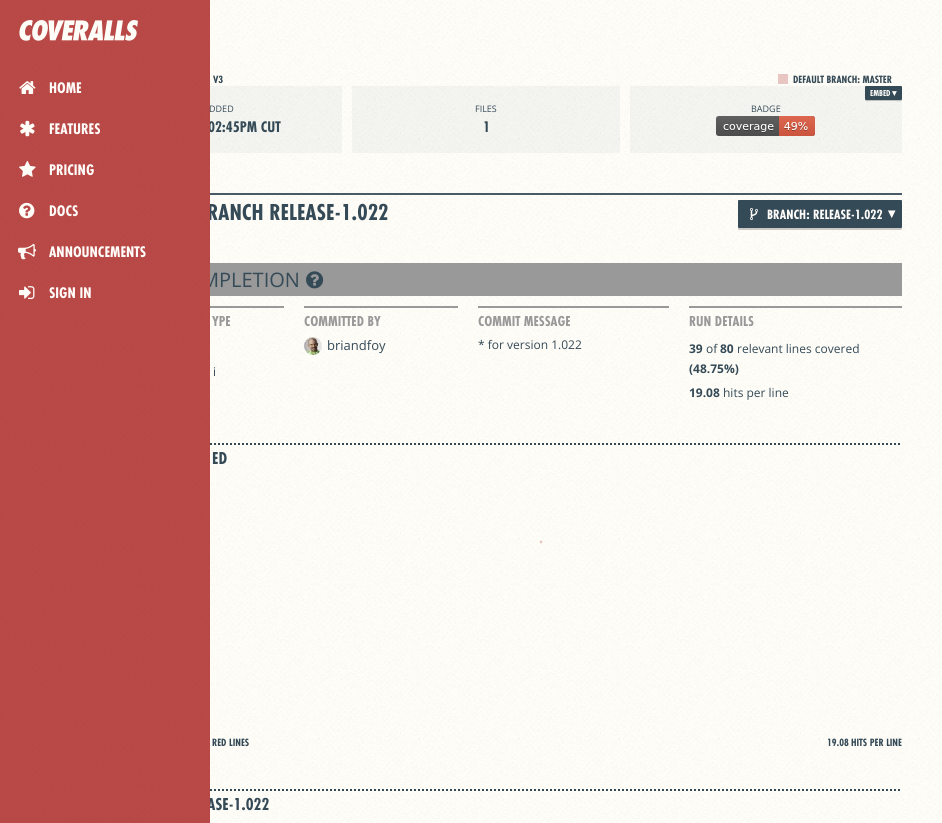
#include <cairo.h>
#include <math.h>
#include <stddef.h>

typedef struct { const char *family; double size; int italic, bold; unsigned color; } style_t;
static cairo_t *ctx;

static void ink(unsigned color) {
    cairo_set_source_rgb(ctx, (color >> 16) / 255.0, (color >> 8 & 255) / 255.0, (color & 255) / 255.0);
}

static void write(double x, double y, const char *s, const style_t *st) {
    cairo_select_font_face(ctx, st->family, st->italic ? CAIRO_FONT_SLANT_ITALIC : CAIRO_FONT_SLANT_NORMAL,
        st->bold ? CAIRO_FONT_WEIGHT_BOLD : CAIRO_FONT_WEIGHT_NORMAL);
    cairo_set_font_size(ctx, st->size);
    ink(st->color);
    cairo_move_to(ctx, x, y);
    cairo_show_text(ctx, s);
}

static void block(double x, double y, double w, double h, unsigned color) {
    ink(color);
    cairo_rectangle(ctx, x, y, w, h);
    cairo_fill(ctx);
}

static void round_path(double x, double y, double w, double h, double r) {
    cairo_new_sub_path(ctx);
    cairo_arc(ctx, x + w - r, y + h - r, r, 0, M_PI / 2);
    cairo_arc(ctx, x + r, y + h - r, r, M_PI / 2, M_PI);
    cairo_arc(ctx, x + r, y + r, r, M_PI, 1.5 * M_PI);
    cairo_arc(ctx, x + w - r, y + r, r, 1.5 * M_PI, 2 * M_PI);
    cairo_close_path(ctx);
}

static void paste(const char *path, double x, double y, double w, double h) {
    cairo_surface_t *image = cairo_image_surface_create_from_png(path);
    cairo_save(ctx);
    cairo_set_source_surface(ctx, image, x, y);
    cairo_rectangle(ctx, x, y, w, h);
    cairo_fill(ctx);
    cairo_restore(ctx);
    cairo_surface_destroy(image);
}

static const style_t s1 = {"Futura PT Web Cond", 16, 0, 1, 0x354a57};
static const style_t s2 = {"Futura PT Web Cond", 24, 0, 1, 0x354a57};
static const style_t s3 = {"Open Sans", 20, 0, 0, 0x354a57};
static const style_t s4 = {"Futura PT Web Cond", 18, 0, 1, 0x354a57};
static const style_t s5 = {"Futura PT Web Cond", 16, 0, 1, 0xfffdfa};
static const style_t s6 = {"Futura PT Web Cond", 11, 0, 1, 0x354a57};
static const style_t s7 = {"Futura PT Web Cond", 9, 0, 1, 0xfffdfa};
static const style_t s8 = {"DejaVu Sans", 9, 0, 1, 0xfffdfa};
static const style_t s9 = {"Open Sans", 9, 0, 0, 0x354a57};
static const style_t s10 = {"Futura PT Web Cond", 14, 0, 1, 0xfffdfa};
static const style_t s11 = {"DejaVu Sans", 14, 0, 1, 0xfffdfa};
static const style_t s12 = {"Futura PT Web Cond", 15, 0, 1, 0x999999};
static const style_t s13 = {"Open Sans", 12, 0, 0, 0x354a57};
static const style_t s14 = {"Open Sans", 13, 0, 0, 0x354a57};
static const style_t s15 = {"Open Sans", 12, 0, 1, 0x354a57};

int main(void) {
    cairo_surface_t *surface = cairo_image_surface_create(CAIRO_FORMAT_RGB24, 942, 823);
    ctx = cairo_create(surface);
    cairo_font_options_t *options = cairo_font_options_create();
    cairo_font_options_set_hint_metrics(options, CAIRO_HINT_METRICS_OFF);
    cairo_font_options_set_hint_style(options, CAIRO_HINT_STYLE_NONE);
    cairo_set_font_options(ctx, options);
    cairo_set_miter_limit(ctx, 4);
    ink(0xfefdf8);
    cairo_paint(ctx);
    paste("pic1.png", 210, 0, 732, 823);
    cairo_set_source_rgba(ctx, 0.208, 0.29, 0.341, 0.05);
    cairo_rectangle(ctx, 210, 86, 132, 67);
    cairo_fill(ctx);
    write(208, 132, "02:45PM CUT", &s1);
    write(207, 220, "RANCH RELEASE-1.022", &s2);
    block(210, 263, 692, 33, 0x999999);
    write(201, 287, "MPLETION", &s3);
    cairo_new_path(ctx);
    cairo_move_to(ctx, 70, 444);
    cairo_line_to(ctx, 902, 444);
    cairo_set_dash(ctx, (double[]){2, 2}, 2, 0);
    cairo_stroke(ctx);
    cairo_new_path(ctx);
    cairo_move_to(ctx, 70, 790);
    cairo_line_to(ctx, 902, 790);
    cairo_stroke(ctx);
    write(207, 810, "ASE-1.022", &s4);
    block(0, 0, 210, 823, 0xb94947);
    paste("pic2.png", 0, 0, 210, 823);
    block(0, 18, 210, 29, 0xb94947);
    paste("pic3.png", 19, 20, 119, 21);
    paste("pic4.png", 19, 81, 17, 13);
    write(49, 93, "HOME", &s5);
    paste("pic5.png", 20, 120, 15, 17);
    write(49, 134, "FEATURES", &s5);
    paste("pic6.png", 19, 160, 17, 17);
    write(49, 175, "PRICING", &s5);
    paste("pic7.png", 19, 202, 16, 17);
    write(49, 216, "DOCS", &s5);
    paste("pic8.png", 18, 243, 18, 17);
    write(49, 257, "ANNOUNCEMENTS", &s5);
    paste("pic9.png", 19, 286, 16, 13);
    write(49, 298, "SIGN IN", &s5);
    write(213, 83, "V3", &s6);
    cairo_set_source_rgba(ctx, 0.725, 0.286, 0.278, 0.3);
    cairo_rectangle(ctx, 778, 74, 10, 10);
    cairo_fill(ctx);
    write(793, 83, "DEFAULT BRANCH: MASTER", &s6);
    cairo_set_source_rgba(ctx, 0.208, 0.29, 0.341, 0.05);
    cairo_rectangle(ctx, 630, 86, 272, 67);
    cairo_fill(ctx);
    cairo_set_source_rgba(ctx, 0, 0, 0, 0.2);
    cairo_new_path(ctx);
    cairo_move_to(ctx, 865, 99);
    cairo_curve_to(ctx, 865, 102.5, 868, 101, 872, 101);
    cairo_line_to(ctx, 895, 101);
    cairo_curve_to(ctx, 899, 101, 902, 102.5, 902, 99);
    cairo_curve_to(ctx, 902, 99.5, 901.5, 100, 901, 100);
    cairo_line_to(ctx, 866, 100);
    cairo_curve_to(ctx, 865.5, 100, 865, 99.5, 865, 99);
    cairo_close_path(ctx);
    cairo_fill(ctx);
    ink(0x354a57);
    round_path(865, 86, 37, 14, 1);
    cairo_fill(ctx);
    write(870, 96, "EMBED", &s7);
    write(892, 96, "▾", &s8);
    paste("pic10.png", 716, 116, 99, 20);
    write(751, 112, "BADGE", &s9);
    write(209, 112, "DDED", &s9);
    cairo_set_source_rgba(ctx, 0.208, 0.29, 0.341, 0.05);
    cairo_rectangle(ctx, 352, 86, 268, 67);
    cairo_fill(ctx);
    write(475, 112, "FILES", &s9);
    write(483, 132, "1", &s1);
    cairo_set_source_rgba(ctx, 0.208, 0.29, 0.341, 0.9);
    cairo_rectangle(ctx, 210, 193, 692, 2);
    cairo_fill(ctx);
    cairo_set_source_rgba(ctx, 0, 0, 0, 0.2);
    cairo_new_path(ctx);
    cairo_move_to(ctx, 738, 227);
    cairo_curve_to(ctx, 738, 228, 738, 230, 739, 230);
    cairo_line_to(ctx, 901, 230);
    cairo_curve_to(ctx, 902, 230, 902, 228, 902, 227);
    cairo_line_to(ctx, 901, 228);
    cairo_line_to(ctx, 739, 228);
    cairo_close_path(ctx);
    cairo_fill(ctx);
    ink(0x354a57);
    round_path(738, 200, 164, 28, 1);
    cairo_fill(ctx);
    paste("pic11.png", 750, 208, 8, 12);
    write(767, 219, "BRANCH: RELEASE-1.022", &s10);
    write(888, 218, "▾", &s11);
    paste("pic12.png", 306, 271, 18, 18);
    block(210, 306, 74, 2, 0x999999);
    write(212, 326, "YPE", &s12);
    write(213, 376, "i", &s13);
    block(304, 306, 154, 2, 0x999999);
    write(304, 326, "COMMITTED BY", &s12);
    paste("pic13.png", 304, 337, 18, 18);
    write(327, 350, "briandfoy", &s14);
    block(478, 306, 191, 2, 0x999999);
    write(478, 326, "COMMIT MESSAGE", &s12);
    write(478, 349, "* for version 1.022", &s13);
    block(689, 306, 213, 2, 0x999999);
    write(689, 326, "RUN DETAILS", &s12);
    write(689, 353, "39", &s15);
    write(706, 353, "of", &s13);
    write(720, 353, "80", &s15);
    write(737, 353, "relevant lines covered", &s13);
    write(689, 373, "(48.75%)", &s15);
    write(689, 397, "19.08", &s15);
    write(723, 397, "hits per line", &s13);
    write(212, 464, "ED", &s4);
    cairo_set_source_rgba(ctx, 0.725, 0.286, 0.278, 0.32);
    cairo_new_path(ctx);
    cairo_arc(ctx, 541, 542, 2, 0, 2 * M_PI);
    cairo_fill_preserve(ctx);
    cairo_set_source_rgba(ctx, 0.996, 0.992, 0.973, 0.8);
    cairo_set_line_width(ctx, 1.5);
    cairo_set_dash(ctx, NULL, 0, 0);
    cairo_stroke(ctx);
    write(212, 746, "RED LINES", &s6);
    write(827, 746, "19.08", &s6);
    write(851, 746, "HITS PER LINE", &s6);
    cairo_surface_write_to_png(surface, "screenshot.png");
    cairo_font_options_destroy(options);
    cairo_destroy(ctx);
    cairo_surface_destroy(surface);
    return 0;
}
